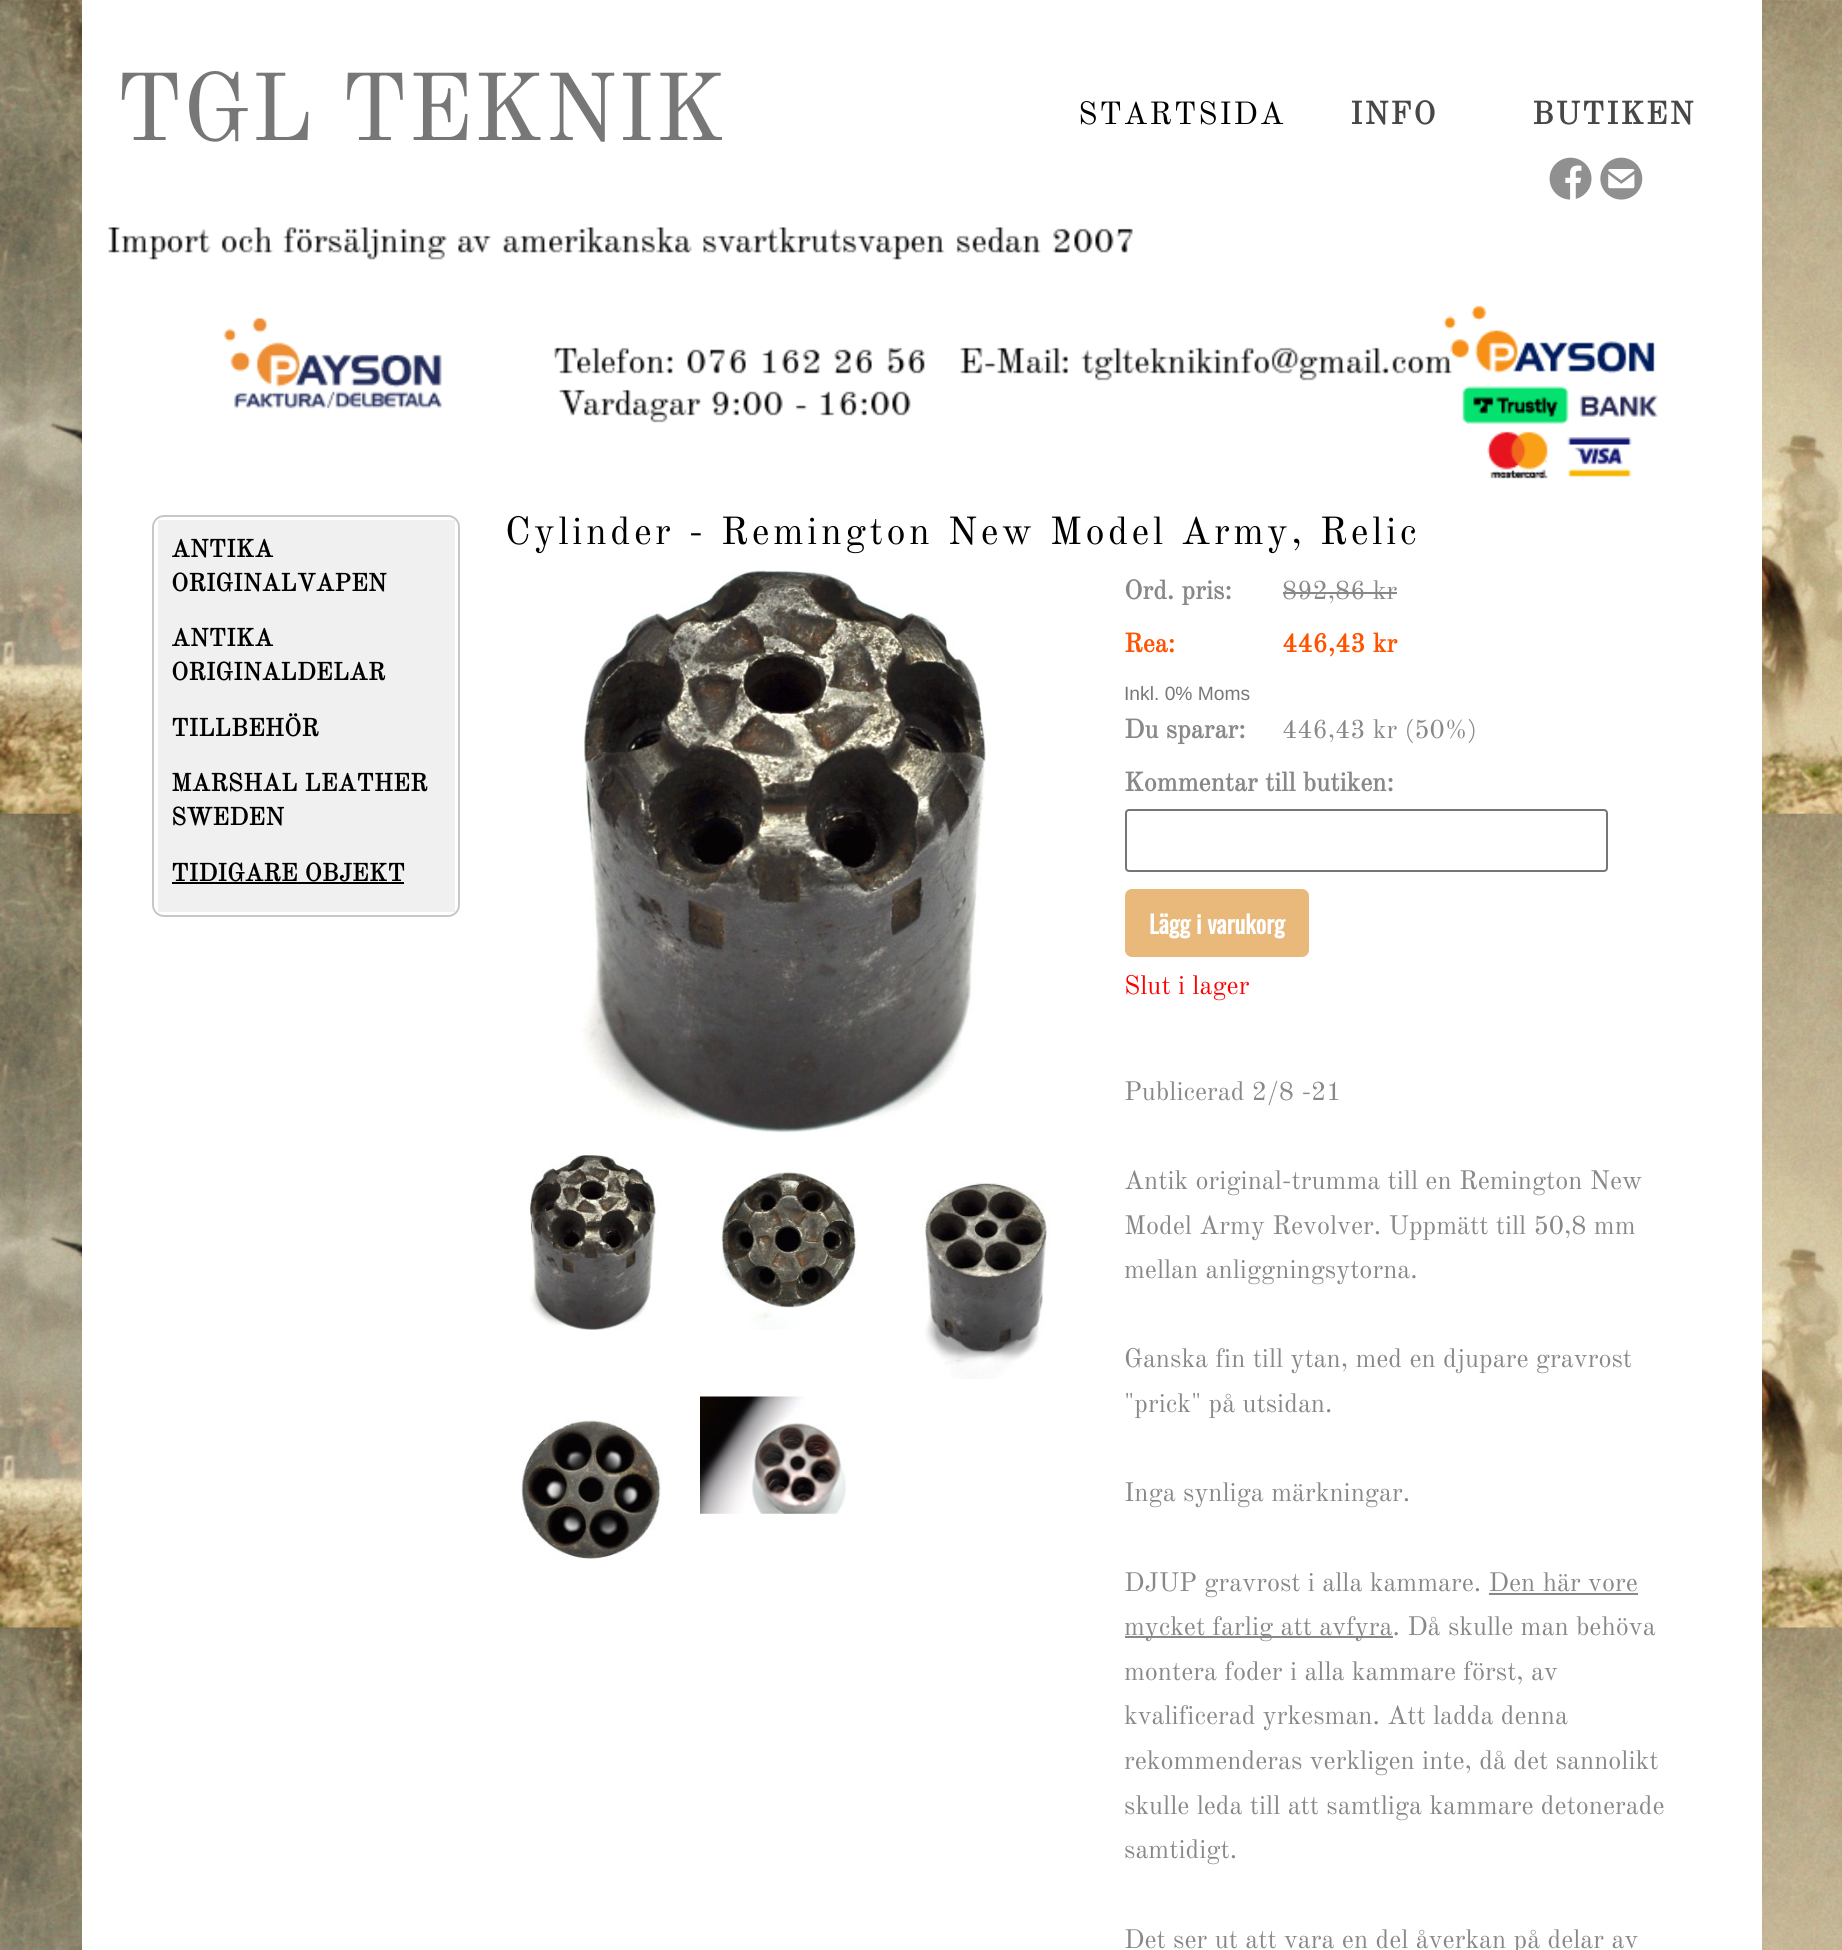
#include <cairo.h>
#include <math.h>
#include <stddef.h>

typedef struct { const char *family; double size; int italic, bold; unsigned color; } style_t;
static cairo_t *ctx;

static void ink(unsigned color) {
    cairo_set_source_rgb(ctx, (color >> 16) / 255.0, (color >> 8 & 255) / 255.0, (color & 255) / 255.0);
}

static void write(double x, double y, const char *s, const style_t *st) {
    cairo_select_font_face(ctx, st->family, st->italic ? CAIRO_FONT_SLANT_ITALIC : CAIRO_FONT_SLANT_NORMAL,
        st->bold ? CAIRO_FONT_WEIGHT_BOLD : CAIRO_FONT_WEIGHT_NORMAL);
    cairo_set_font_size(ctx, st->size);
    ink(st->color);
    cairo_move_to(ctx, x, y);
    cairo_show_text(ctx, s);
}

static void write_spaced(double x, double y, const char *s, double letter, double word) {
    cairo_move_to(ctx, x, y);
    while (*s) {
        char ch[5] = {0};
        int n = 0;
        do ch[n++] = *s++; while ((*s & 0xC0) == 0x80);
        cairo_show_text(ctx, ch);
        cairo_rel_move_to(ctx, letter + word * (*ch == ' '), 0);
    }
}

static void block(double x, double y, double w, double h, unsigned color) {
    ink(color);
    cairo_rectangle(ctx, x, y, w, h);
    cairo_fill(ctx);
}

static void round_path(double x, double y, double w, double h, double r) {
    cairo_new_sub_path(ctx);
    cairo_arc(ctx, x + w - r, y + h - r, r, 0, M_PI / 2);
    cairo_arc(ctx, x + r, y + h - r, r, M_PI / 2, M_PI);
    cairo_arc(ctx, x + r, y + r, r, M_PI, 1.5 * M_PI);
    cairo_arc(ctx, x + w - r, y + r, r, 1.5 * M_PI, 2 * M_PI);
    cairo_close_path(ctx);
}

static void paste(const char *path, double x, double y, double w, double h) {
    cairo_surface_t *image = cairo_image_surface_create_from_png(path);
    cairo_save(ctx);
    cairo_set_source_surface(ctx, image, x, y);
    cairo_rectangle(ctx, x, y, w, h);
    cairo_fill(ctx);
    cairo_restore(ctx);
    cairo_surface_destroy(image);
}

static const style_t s1 = {"Old Standard TT", 94.5, 0, 0, 0x777777};
static const style_t s2 = {"Old Standard TT", 24.5, 0, 1, 0x000000};
static const style_t s3 = {"Old Standard TT", 26.25, 0, 1, 0x888888};
static const style_t s4 = {"Old Standard TT", 26.25, 0, 0, 0x888888};
static const style_t s5 = {"Old Standard TT", 26.25, 0, 1, 0xff5300};
static const style_t s6 = {"Liberation Sans", 19.25, 0, 0, 0x777777};
static const style_t s7 = {"Oswald", 24.5, 0, 1, 0xffffff};
static const style_t s8 = {"Old Standard TT", 26.25, 0, 0, 0xff0000};

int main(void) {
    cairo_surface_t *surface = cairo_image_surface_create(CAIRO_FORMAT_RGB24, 1842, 1950);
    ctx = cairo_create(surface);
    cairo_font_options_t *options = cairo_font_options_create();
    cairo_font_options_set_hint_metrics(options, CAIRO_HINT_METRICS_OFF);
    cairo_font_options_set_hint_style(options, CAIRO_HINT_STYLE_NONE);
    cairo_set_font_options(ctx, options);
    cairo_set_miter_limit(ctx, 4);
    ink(0xffffff);
    cairo_paint(ctx);
    paste("pic1.png", 0, 0, 1842, 1950);
    block(82, 0, 1680, 1950, 0xffffff);
    paste("pic2.png", 108, 227, 1550, 252);
    write(115, 140, "TGL TEKNIK", &s1);
    cairo_set_font_size(ctx, 31.5);
    ink(0x000000);
    write_spaced(1078, 124, "STARTSIDA", 1.75, 0);
    cairo_select_font_face(ctx, "Old Standard TT", CAIRO_FONT_SLANT_NORMAL, CAIRO_FONT_WEIGHT_BOLD);
    ink(0x474747);
    write_spaced(1350, 124, "INFO", 1.75, 0);
    write_spaced(1532, 124, "BUTIKEN", 1.75, 0);
    paste("pic3.png", 1549, 157, 43, 43);
    paste("pic4.png", 1600, 157, 43, 43);
    round_path(153, 516, 306, 400, 11);
    ink(0xc7c7c7);
    cairo_stroke(ctx);
    block(158, 520, 297, 392, 0xf0f0f0);
    write(171, 557, "ANTIKA", &s2);
    write(171, 591, "ORIGINALVAPEN", &s2);
    write(171, 646, "ANTIKA", &s2);
    write(171, 680, "ORIGINALDELAR", &s2);
    write(171, 736, "TILLBEHÖR", &s2);
    write(171, 791, "MARSHAL LEATHER", &s2);
    write(171, 825, "SWEDEN", &s2);
    write(171, 881, "TIDIGARE OBJEKT", &s2);
    block(172, 882, 232, 2, 0x000000);
    cairo_select_font_face(ctx, "Old Standard TT", CAIRO_FONT_SLANT_NORMAL, CAIRO_FONT_WEIGHT_NORMAL);
    cairo_set_font_size(ctx, 38.5);
    write_spaced(505, 544, "Cylinder - Remington New Model Army, Relic", 3.5, 0);
    paste("pic5.png", 581, 570, 405, 563);
    paste("pic6.png", 528, 1155, 131, 175);
    paste("pic7.png", 721, 1171, 137, 159);
    paste("pic8.png", 922, 1182, 130, 197);
    paste("pic9.png", 521, 1419, 141, 141);
    paste("pic10.png", 700, 1396, 146, 118);
    write(1124, 599, "Ord. pris:", &s3);
    write(1282, 599, "892,86 kr", &s4);
    block(1283, 592, 114, 2, 0x888888);
    write(1124, 652, "Rea:", &s5);
    write(1282, 652, "446,43 kr", &s5);
    write(1124, 700, "Inkl. 0% Moms", &s6);
    write(1124, 738, "Du sparar:", &s3);
    write(1282, 738, "446,43 kr (50%)", &s4);
    write(1124, 791, "Kommentar till butiken:", &s3);
    round_path(1126, 810, 481, 61, 3);
    ink(0x767676);
    cairo_stroke(ctx);
    ink(0xe8b97b);
    round_path(1125, 889, 184, 68, 7);
    cairo_fill(ctx);
    write(1149, 934, "Lägg i varukorg", &s7);
    write(1124, 994, "Slut i lager", &s8);
    write(1124, 1100, "Publicerad 2/8 -21", &s4);
    write(1124, 1189, "Antik original-trumma till en Remington New", &s4);
    write(1124, 1234, "Model Army Revolver. Uppmätt till 50,8 mm", &s4);
    write(1124, 1278, "mellan anliggningsytorna.", &s4);
    write(1124, 1367, "Ganska fin till ytan, med en djupare gravrost", &s4);
    write(1124, 1412, "\"prick\" på utsidan.", &s4);
    write(1124, 1501, "Inga synliga märkningar.", &s4);
    write(1124, 1591, "DJUP gravrost i alla kammare. Den här vore", &s4);
    block(1125, 1636, 268, 2, 0x888888);
    write(1124, 1635, "mycket farlig att avfyra. Då skulle man behöva", &s4);
    block(1489, 1593, 149, 2, 0x888888);
    write(1124, 1680, "montera foder i alla kammare först, av", &s4);
    write(1124, 1724, "kvalificerad yrkesman. Att ladda denna", &s4);
    write(1124, 1769, "rekommenderas verkligen inte, då det sannolikt", &s4);
    write(1124, 1814, "skulle leda till att samtliga kammare detonerade", &s4);
    write(1124, 1858, "samtidigt.", &s4);
    write(1124, 1948, "Det ser ut att vara en del åverkan på delar av", &s4);
    cairo_surface_write_to_png(surface, "screenshot.png");
    cairo_font_options_destroy(options);
    cairo_destroy(ctx);
    cairo_surface_destroy(surface);
    return 0;
}
